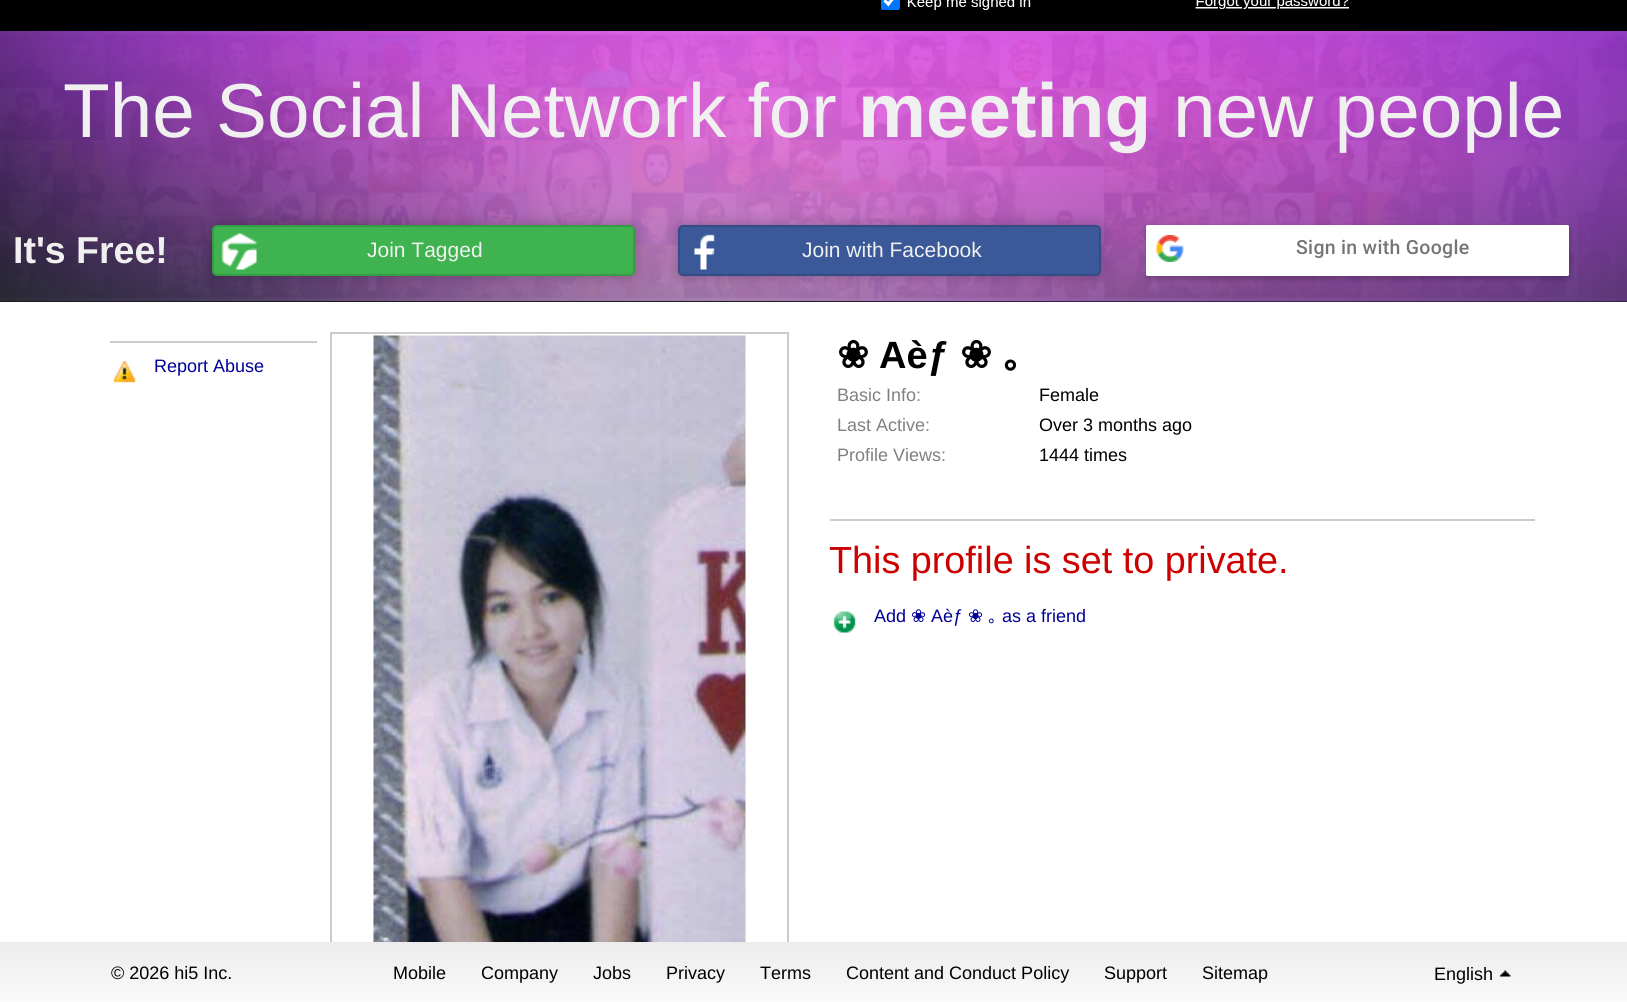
#include <cairo.h>
#include <math.h>
#include <stddef.h>

typedef struct { const char *family; double size; int italic, bold; unsigned color; } style_t;
static cairo_t *ctx;

static void ink(unsigned color) {
    cairo_set_source_rgb(ctx, (color >> 16) / 255.0, (color >> 8 & 255) / 255.0, (color & 255) / 255.0);
}

static void write(double x, double y, const char *s, const style_t *st) {
    cairo_select_font_face(ctx, st->family, st->italic ? CAIRO_FONT_SLANT_ITALIC : CAIRO_FONT_SLANT_NORMAL,
        st->bold ? CAIRO_FONT_WEIGHT_BOLD : CAIRO_FONT_WEIGHT_NORMAL);
    cairo_set_font_size(ctx, st->size);
    ink(st->color);
    cairo_move_to(ctx, x, y);
    cairo_show_text(ctx, s);
}

static void write_spaced(double x, double y, const char *s, double letter, double word) {
    cairo_move_to(ctx, x, y);
    while (*s) {
        char ch[5] = {0};
        int n = 0;
        do ch[n++] = *s++; while ((*s & 0xC0) == 0x80);
        cairo_show_text(ctx, ch);
        cairo_rel_move_to(ctx, letter + word * (*ch == ' '), 0);
    }
}

static void block(double x, double y, double w, double h, unsigned color) {
    ink(color);
    cairo_rectangle(ctx, x, y, w, h);
    cairo_fill(ctx);
}

static void round_path(double x, double y, double w, double h, double r) {
    cairo_new_sub_path(ctx);
    cairo_arc(ctx, x + w - r, y + h - r, r, 0, M_PI / 2);
    cairo_arc(ctx, x + r, y + h - r, r, M_PI / 2, M_PI);
    cairo_arc(ctx, x + r, y + r, r, M_PI, 1.5 * M_PI);
    cairo_arc(ctx, x + w - r, y + r, r, 1.5 * M_PI, 2 * M_PI);
    cairo_close_path(ctx);
}

static void blur_box(double x, double y, double w, double h, double r, double blur, double alpha) {
    cairo_push_group_with_content(ctx, CAIRO_CONTENT_ALPHA);
    cairo_set_operator(ctx, CAIRO_OPERATOR_SOURCE);
    for (int i = 15; i >= -15 && fmin(w, h) + blur * i / 3 > 0; i -= 2) {
        double e = blur * i / 6;
        cairo_set_source_rgba(ctx, 0, 0, 0, alpha * erfc((i - 1) / 8.5) / 2);
        round_path(x - e, y - e, w + 2 * e, h + 2 * e, fmax(0, fmin(r + e + blur * .6, fmin(w, h) / 2 + e)));
        cairo_fill(ctx);
    }
    cairo_pattern_t *soft = cairo_pop_group(ctx);
    cairo_mask(ctx, soft);
    cairo_pattern_destroy(soft);
}

static void paste(const char *path, double x, double y, double w, double h) {
    cairo_surface_t *image = cairo_image_surface_create_from_png(path);
    cairo_save(ctx);
    cairo_set_source_surface(ctx, image, x, y);
    cairo_rectangle(ctx, x, y, w, h);
    cairo_fill(ctx);
    cairo_restore(ctx);
    cairo_surface_destroy(image);
}

static const style_t s1 = {"Liberation Sans", 76.5, 0, 0, 0xf0f0f0};
static const style_t s2 = {"Liberation Sans", 76.5, 0, 1, 0xf0f0f0};
static const style_t s3 = {"Liberation Sans", 37.5, 0, 1, 0xf0f0f0};
static const style_t s4 = {"Liberation Sans", 21, 0, 0, 0xf0f0f0};
static const style_t s5 = {"Liberation Sans", 18, 0, 0, 0x000098};
static const style_t s6 = {"DejaVu Sans", 38, 0, 1, 0x000000};
static const style_t s7 = {"Liberation Sans", 38, 0, 1, 0x000000};
static const style_t s8 = {"IPAGothic", 38, 0, 1, 0x000000};
static const style_t s9 = {"Liberation Sans", 18, 0, 0, 0x808080};
static const style_t s10 = {"Liberation Sans", 18, 0, 0, 0x000000};
static const style_t s11 = {"Liberation Sans", 37.75, 0, 0, 0xcc0000};
static const style_t s12 = {"DejaVu Sans", 18, 0, 0, 0x000098};
static const style_t s13 = {"IPAGothic", 18, 0, 0, 0x000098};

int main(void) {
    cairo_surface_t *surface = cairo_image_surface_create(CAIRO_FORMAT_RGB24, 1627, 1002);
    ctx = cairo_create(surface);
    cairo_font_options_t *options = cairo_font_options_create();
    cairo_font_options_set_hint_metrics(options, CAIRO_HINT_METRICS_OFF);
    cairo_font_options_set_hint_style(options, CAIRO_HINT_STYLE_NONE);
    cairo_set_font_options(ctx, options);
    cairo_set_miter_limit(ctx, 4);
    cairo_pattern_t *gradient;
    ink(0xffffff);
    cairo_paint(ctx);
    block(0, 0, 1627, 31, 0x000000);
    paste("pic1.png", 881, 0, 468, 10);
    gradient = cairo_pattern_create_linear(0, 167, 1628, 166);
    cairo_pattern_add_color_stop_rgba(gradient, 0.47, 0.098, 0.106, 0.114, 1);
    cairo_pattern_add_color_stop_rgba(gradient, 0.65, 0.22, 0.133, 0.31, 1);
    cairo_set_source(ctx, gradient);
    cairo_pattern_destroy(gradient);
    cairo_rectangle(ctx, 0, 301, 1627, 1);
    cairo_fill(ctx);
    paste("pic2.png", 0, 31, 1627, 270);
    write(63, 137, "The Social Network for", &s1);
    write(858, 137, "meeting", &s2);
    write(1173, 137, "new people", &s1);
    write(13, 263, "It's Free!", &s3);
    ink(0x000000);
    blur_box(212, 225, 423, 51, 5, 7, 0.25);
    ink(0x3fb34f);
    round_path(213, 226, 421, 49, 4);
    cairo_fill_preserve(ctx);
    ink(0x379d45);
    cairo_stroke(ctx);
    paste("pic3.png", 221, 233, 36, 37);
    write(367, 257, "Join Tagged", &s4);
    ink(0x000000);
    blur_box(678, 225, 423, 51, 5, 7, 0.25);
    ink(0x3b5998);
    round_path(679, 226, 421, 49, 4);
    cairo_fill_preserve(ctx);
    ink(0x334c83);
    cairo_stroke(ctx);
    paste("pic4.png", 694, 234, 21, 36);
    write(802, 257, "Join with Facebook", &s4);
    ink(0x000000);
    blur_box(1146, 228, 423, 51, 1.5, 3, 0.25);
    ink(0xffffff);
    round_path(1146, 225, 423, 51, 1.5);
    cairo_fill(ctx);
    paste("pic5.png", 1156, 235, 28, 27);
    cairo_select_font_face(ctx, "Roboto Medium", CAIRO_FONT_SLANT_NORMAL, CAIRO_FONT_WEIGHT_NORMAL);
    cairo_set_font_size(ctx, 19.5);
    ink(0x757575);
    write_spaced(1296, 254, "Sign in with Google", 0.3, 0);
    block(110, 341, 207, 2, 0xcccccc);
    paste("pic6.png", 113, 360, 23, 23);
    write(154, 372, "Report Abuse", &s5);
    cairo_rectangle(ctx, 331, 333, 457, 667);
    ink(0xcccccc);
    cairo_stroke(ctx);
    paste("pic7.png", 373, 335, 373, 607);
    write(837, 368, "❀", &s6);
    write(879, 368, "Aèƒ", &s7);
    write(960, 368, "❀", &s6);
    write(1003, 368, "｡", &s8);
    write(837, 401, "Basic Info:", &s9);
    write(1039, 401, "Female", &s10);
    write(837, 431, "Last Active:", &s9);
    write(1039, 431, "Over 3 months ago", &s10);
    write(837, 461, "Profile Views:", &s9);
    write(1039, 461, "1444 times", &s10);
    block(830, 519, 705, 2, 0xcccccc);
    write(829, 573, "This profile is set to private.", &s11);
    paste("pic8.png", 833, 611, 23, 22);
    write(874, 622, "Add", &s5);
    write(911, 622, "❀", &s12);
    write(931, 622, "Aèƒ", &s5);
    write(968, 622, "❀", &s12);
    write(988, 622, "｡", &s13);
    write(1002, 622, "as a friend", &s5);
    gradient = cairo_pattern_create_linear(814, 942, 814, 1002);
    cairo_pattern_add_color_stop_rgba(gradient, 0, 0.925, 0.925, 0.929, 1);
    cairo_pattern_add_color_stop_rgba(gradient, 1, 0.984, 0.98, 0.98, 1);
    cairo_set_source(ctx, gradient);
    cairo_pattern_destroy(gradient);
    cairo_rectangle(ctx, 0, 942, 1627, 60);
    cairo_fill(ctx);
    write(111, 979, "© 2026 hi5 Inc.", &s10);
    write(393, 979, "Mobile", &s10);
    write(481, 979, "Company", &s10);
    write(593, 979, "Jobs", &s10);
    write(666, 979, "Privacy", &s10);
    write(760, 979, "Terms", &s10);
    write(846, 979, "Content and Conduct Policy", &s10);
    write(1104, 979, "Support", &s10);
    write(1202, 979, "Sitemap", &s10);
    write(1434, 980, "English", &s10);
    paste("pic9.png", 1500, 970, 11, 7);
    cairo_surface_write_to_png(surface, "screenshot.png");
    cairo_font_options_destroy(options);
    cairo_destroy(ctx);
    cairo_surface_destroy(surface);
    return 0;
}
